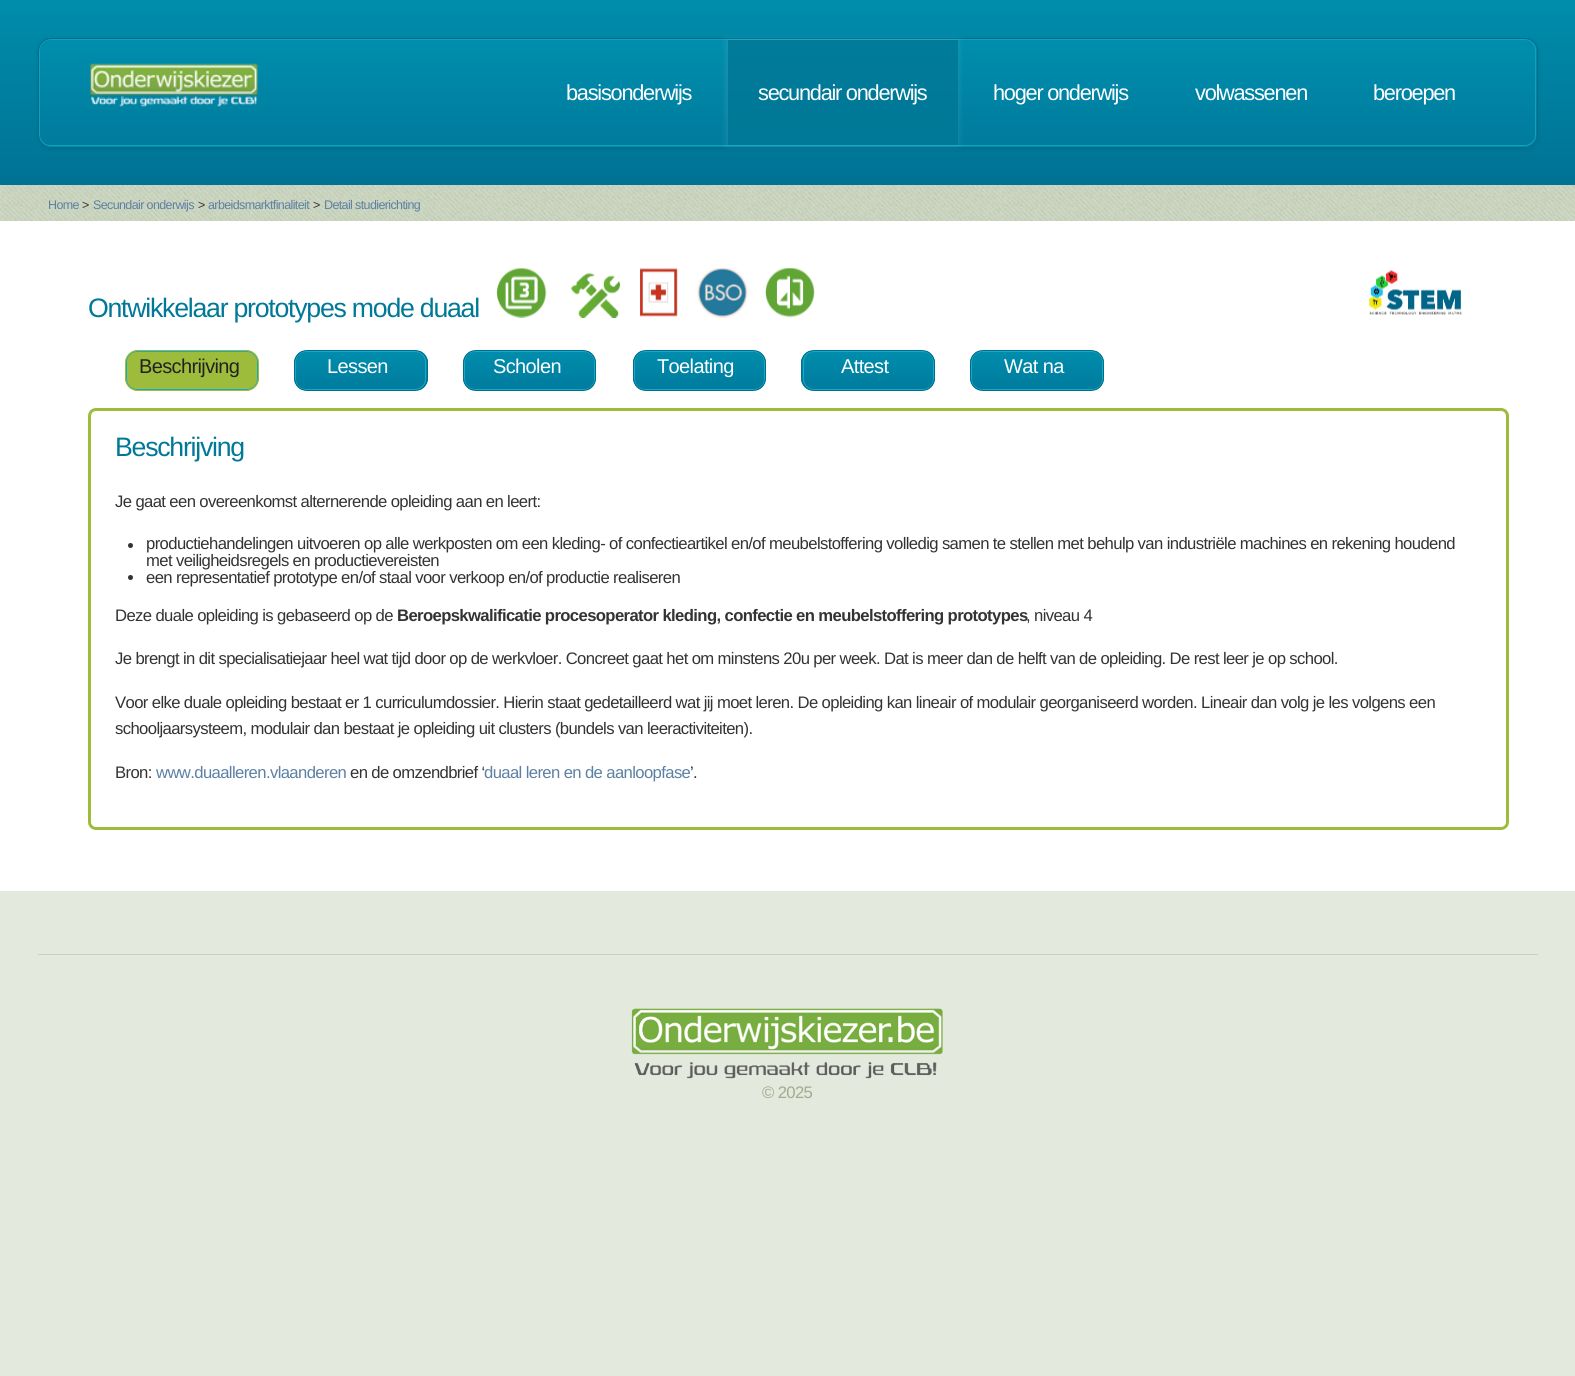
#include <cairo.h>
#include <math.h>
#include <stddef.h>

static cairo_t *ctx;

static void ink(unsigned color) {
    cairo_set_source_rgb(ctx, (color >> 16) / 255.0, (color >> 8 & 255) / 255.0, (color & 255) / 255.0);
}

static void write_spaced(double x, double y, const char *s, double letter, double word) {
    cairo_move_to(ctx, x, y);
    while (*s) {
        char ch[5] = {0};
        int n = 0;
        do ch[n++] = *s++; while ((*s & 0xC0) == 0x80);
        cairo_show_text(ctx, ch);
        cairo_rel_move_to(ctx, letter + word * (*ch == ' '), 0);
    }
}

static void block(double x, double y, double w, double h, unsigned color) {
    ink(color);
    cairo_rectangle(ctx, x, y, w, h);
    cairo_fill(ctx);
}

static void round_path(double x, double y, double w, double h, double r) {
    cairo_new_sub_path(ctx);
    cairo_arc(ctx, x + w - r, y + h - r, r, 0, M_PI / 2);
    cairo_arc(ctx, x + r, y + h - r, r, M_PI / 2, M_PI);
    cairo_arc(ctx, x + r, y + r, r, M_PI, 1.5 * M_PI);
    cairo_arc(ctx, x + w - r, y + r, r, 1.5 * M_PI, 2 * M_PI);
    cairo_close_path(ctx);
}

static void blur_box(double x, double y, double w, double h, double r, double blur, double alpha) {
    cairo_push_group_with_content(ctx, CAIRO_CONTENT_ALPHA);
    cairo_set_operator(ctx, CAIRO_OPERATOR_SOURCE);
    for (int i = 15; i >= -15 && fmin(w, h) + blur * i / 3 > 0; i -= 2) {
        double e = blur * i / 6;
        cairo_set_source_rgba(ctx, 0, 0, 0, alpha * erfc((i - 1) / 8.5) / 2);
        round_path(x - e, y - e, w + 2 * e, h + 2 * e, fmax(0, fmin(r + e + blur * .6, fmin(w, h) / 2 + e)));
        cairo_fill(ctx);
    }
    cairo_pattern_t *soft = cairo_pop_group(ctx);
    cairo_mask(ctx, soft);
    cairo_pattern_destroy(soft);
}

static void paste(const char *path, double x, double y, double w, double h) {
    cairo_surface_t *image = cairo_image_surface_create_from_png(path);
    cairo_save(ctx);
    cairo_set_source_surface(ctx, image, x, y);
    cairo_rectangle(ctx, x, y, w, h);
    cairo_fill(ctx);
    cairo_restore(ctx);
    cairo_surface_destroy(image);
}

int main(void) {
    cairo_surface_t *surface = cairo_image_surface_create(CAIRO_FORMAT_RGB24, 1575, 1376);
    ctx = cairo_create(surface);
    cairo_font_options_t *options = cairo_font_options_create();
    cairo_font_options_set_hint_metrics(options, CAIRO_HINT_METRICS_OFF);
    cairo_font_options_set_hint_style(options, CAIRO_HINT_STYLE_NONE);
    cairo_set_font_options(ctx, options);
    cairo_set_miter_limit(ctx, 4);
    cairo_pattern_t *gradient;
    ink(0xe3e9dc);
    cairo_paint(ctx);
    gradient = cairo_pattern_create_linear(0, 0, 0, 185);
    cairo_pattern_add_color_stop_rgba(gradient, 0, 0, 0.553, 0.671, 1);
    cairo_pattern_add_color_stop_rgba(gradient, 1, 0, 0.447, 0.58, 1);
    cairo_set_source(ctx, gradient);
    cairo_pattern_destroy(gradient);
    cairo_rectangle(ctx, 0, 0, 1575, 185);
    cairo_fill(ctx);
    ink(0x000000);
    blur_box(38, 39, 1500, 110, 13, 2.5, 0.1);
    cairo_save(ctx);
    round_path(38, 38, 1500, 110, 13);
    cairo_clip(ctx);
    gradient = cairo_pattern_create_linear(39, 39, 39, 146);
    cairo_pattern_add_color_stop_rgba(gradient, 0, 0, 0.557, 0.678, 1);
    cairo_pattern_add_color_stop_rgba(gradient, 1, 0, 0.482, 0.616, 1);
    cairo_set_source(ctx, gradient);
    cairo_pattern_destroy(gradient);
    cairo_rectangle(ctx, 38, 39, 1500, 107);
    cairo_fill(ctx);
    gradient = cairo_pattern_create_linear(39, 146, 39, 254);
    cairo_pattern_add_color_stop_rgba(gradient, 0, 0, 0.557, 0.678, 1);
    cairo_pattern_add_color_stop_rgba(gradient, 1, 0, 0.482, 0.616, 1);
    cairo_set_source(ctx, gradient);
    cairo_pattern_destroy(gradient);
    cairo_rectangle(ctx, 38, 146, 1500, 2);
    cairo_fill(ctx);
    cairo_restore(ctx);
    round_path(39.5, 39.5, 1496, 106, 10.5);
    ink(0x12a0bf);
    cairo_set_line_width(ctx, 1);
    cairo_stroke(ctx);
    round_path(38.5, 38.5, 1499, 109, 12.5);
    ink(0x006e8b);
    cairo_stroke(ctx);
    paste("pic1.png", 89, 63, 169, 44);
    cairo_select_font_face(ctx, "Liberation Sans", CAIRO_FONT_SLANT_NORMAL, CAIRO_FONT_WEIGHT_NORMAL);
    cairo_set_font_size(ctx, 21.75);
    ink(0xffffff);
    write_spaced(566, 100, "basisonderwijs", -1.25, 0);
    ink(0xffffff);
    blur_box(726, 39, 233, 107, 0, 3, 0.1);
    gradient = cairo_pattern_create_linear(728, 40, 728, 145);
    cairo_pattern_add_color_stop_rgba(gradient, 0, 0, 0.482, 0.6, 1);
    cairo_pattern_add_color_stop_rgba(gradient, 1, 0, 0.471, 0.592, 1);
    cairo_set_source(ctx, gradient);
    cairo_pattern_destroy(gradient);
    cairo_rectangle(ctx, 728, 40, 230, 105);
    cairo_fill(ctx);
    ink(0xffffff);
    write_spaced(758, 100, "secundair onderwijs", -1.25, 0);
    write_spaced(993, 100, "hoger onderwijs", -1.25, 0);
    write_spaced(1195, 100, "volwassenen", -1.25, 0);
    write_spaced(1373, 100, "beroepen", -1.25, 0);
    paste("pic2.png", 0, 185, 1575, 36);
    cairo_set_font_size(ctx, 12.5);
    ink(0x5d80a4);
    write_spaced(48, 209, "Home", -0.62, 0);
    ink(0x333333);
    write_spaced(82, 209, ">", -0.62, 0);
    ink(0x5d80a4);
    write_spaced(93, 209, "Secundair onderwijs", -0.62, 0);
    ink(0x333333);
    write_spaced(198, 209, ">", -0.62, 0);
    ink(0x5d80a4);
    write_spaced(208, 209, "arbeidsmarktfinaliteit", -0.62, 0);
    ink(0x333333);
    write_spaced(313, 209, ">", -0.62, 0);
    ink(0x5d80a4);
    write_spaced(324, 209, "Detail studierichting", -0.62, 0);
    block(0, 221, 1575, 670, 0xffffff);
    cairo_set_font_size(ctx, 26.7);
    ink(0x007897);
    write_spaced(88, 317, "Ontwikkelaar prototypes mode duaal", -1.25, 0);
    paste("pic3.png", 496, 268, 51, 50);
    paste("pic4.png", 571, 273, 49, 45);
    paste("pic5.png", 640, 268, 38, 49);
    paste("pic6.png", 697, 268, 51, 50);
    paste("pic7.png", 765, 268, 50, 50);
    paste("pic8.png", 1369, 270, 93, 45);
    ink(0x9ebc3b);
    round_path(125, 350, 134, 41, 13);
    cairo_fill(ctx);
    round_path(126.5, 351.5, 131, 38, 10.5);
    ink(0x18a8c8);
    cairo_stroke(ctx);
    round_path(125.5, 350.5, 133, 40, 12.5);
    ink(0x9ebc3b);
    cairo_stroke(ctx);
    cairo_set_font_size(ctx, 20);
    ink(0x222222);
    write_spaced(139, 373, "Beschrijving", -0.62, 0);
    cairo_save(ctx);
    round_path(294, 350, 134, 41, 13);
    cairo_clip(ctx);
    gradient = cairo_pattern_create_linear(295, 351, 295, 390);
    cairo_pattern_add_color_stop_rgba(gradient, 0, 0, 0.553, 0.678, 1);
    cairo_pattern_add_color_stop_rgba(gradient, 1, 0, 0.482, 0.616, 1);
    cairo_set_source(ctx, gradient);
    cairo_pattern_destroy(gradient);
    cairo_rectangle(ctx, 294, 351, 134, 39);
    cairo_fill(ctx);
    cairo_restore(ctx);
    round_path(295.5, 351.5, 130, 38, 10.5);
    ink(0x18a8c8);
    cairo_stroke(ctx);
    round_path(294.5, 350.5, 133, 40, 12.5);
    ink(0x006e8b);
    cairo_stroke(ctx);
    ink(0xffffff);
    write_spaced(327, 373, "Lessen", -0.62, 0);
    cairo_save(ctx);
    round_path(463, 350, 133, 41, 13);
    cairo_clip(ctx);
    gradient = cairo_pattern_create_linear(464, 351, 464, 390);
    cairo_pattern_add_color_stop_rgba(gradient, 0, 0, 0.553, 0.678, 1);
    cairo_pattern_add_color_stop_rgba(gradient, 1, 0, 0.482, 0.616, 1);
    cairo_set_source(ctx, gradient);
    cairo_pattern_destroy(gradient);
    cairo_rectangle(ctx, 463, 351, 133, 39);
    cairo_fill(ctx);
    cairo_restore(ctx);
    round_path(464.5, 351.5, 130, 38, 10.5);
    ink(0x18a8c8);
    cairo_stroke(ctx);
    round_path(463.5, 350.5, 132, 40, 12.5);
    ink(0x006e8b);
    cairo_stroke(ctx);
    ink(0xffffff);
    write_spaced(493, 373, "Scholen", -0.62, 0);
    cairo_save(ctx);
    round_path(633, 350, 133, 41, 13);
    cairo_clip(ctx);
    gradient = cairo_pattern_create_linear(634, 351, 634, 390);
    cairo_pattern_add_color_stop_rgba(gradient, 0, 0, 0.553, 0.678, 1);
    cairo_pattern_add_color_stop_rgba(gradient, 1, 0, 0.482, 0.616, 1);
    cairo_set_source(ctx, gradient);
    cairo_pattern_destroy(gradient);
    cairo_rectangle(ctx, 633, 351, 133, 39);
    cairo_fill(ctx);
    cairo_restore(ctx);
    round_path(634.5, 351.5, 130, 38, 10.5);
    ink(0x18a8c8);
    cairo_stroke(ctx);
    round_path(633.5, 350.5, 132, 40, 12.5);
    ink(0x006e8b);
    cairo_stroke(ctx);
    ink(0xffffff);
    write_spaced(657, 373, "Toelating", -0.62, 0);
    cairo_save(ctx);
    round_path(801, 350, 134, 41, 13);
    cairo_clip(ctx);
    gradient = cairo_pattern_create_linear(803, 351, 803, 390);
    cairo_pattern_add_color_stop_rgba(gradient, 0, 0, 0.553, 0.678, 1);
    cairo_pattern_add_color_stop_rgba(gradient, 1, 0, 0.482, 0.616, 1);
    cairo_set_source(ctx, gradient);
    cairo_pattern_destroy(gradient);
    cairo_rectangle(ctx, 801, 351, 134, 39);
    cairo_fill(ctx);
    cairo_restore(ctx);
    round_path(803.5, 351.5, 130, 38, 10.5);
    ink(0x18a8c8);
    cairo_stroke(ctx);
    round_path(801.5, 350.5, 133, 40, 12.5);
    ink(0x006e8b);
    cairo_stroke(ctx);
    ink(0xffffff);
    write_spaced(841, 373, "Attest", -0.62, 0);
    cairo_save(ctx);
    round_path(970, 350, 134, 41, 13);
    cairo_clip(ctx);
    gradient = cairo_pattern_create_linear(971, 351, 971, 390);
    cairo_pattern_add_color_stop_rgba(gradient, 0, 0, 0.553, 0.678, 1);
    cairo_pattern_add_color_stop_rgba(gradient, 1, 0, 0.482, 0.616, 1);
    cairo_set_source(ctx, gradient);
    cairo_pattern_destroy(gradient);
    cairo_rectangle(ctx, 970, 351, 134, 39);
    cairo_fill(ctx);
    cairo_restore(ctx);
    round_path(971.5, 351.5, 131, 38, 10.5);
    ink(0x18a8c8);
    cairo_stroke(ctx);
    round_path(970.5, 350.5, 133, 40, 12.5);
    ink(0x006e8b);
    cairo_stroke(ctx);
    ink(0xffffff);
    write_spaced(1004, 373, "Wat na", -0.62, 0);
    round_path(89.5, 409.5, 1418, 419, 6.5);
    ink(0x9ebc3b);
    cairo_set_line_width(ctx, 3);
    cairo_stroke(ctx);
    cairo_set_font_size(ctx, 26.7);
    ink(0x007897);
    write_spaced(115, 456, "Beschrijving", -1.25, 0);
    cairo_set_font_size(ctx, 16.67);
    ink(0x333333);
    write_spaced(115, 507, "Je gaat een overeenkomst alternerende opleiding aan en leert:", -0.62, 0);
    cairo_new_path(ctx);
    cairo_arc(ctx, 130.5, 545.5, 2.5, 0, 2 * M_PI);
    cairo_fill(ctx);
    write_spaced(146, 549, "productiehandelingen uitvoeren op alle werkposten om een kleding- of confectieartikel en/of meubelstoffering volledig samen te stellen met behulp van industriële machines en rekening houdend", -0.62, 0);
    write_spaced(146, 566, "met veiligheidsregels en productievereisten", -0.62, 0);
    cairo_new_path(ctx);
    cairo_arc(ctx, 130.5, 577.5, 2.5, 0, 2 * M_PI);
    cairo_fill(ctx);
    write_spaced(146, 583, "een representatief prototype en/of staal voor verkoop en/of productie realiseren", -0.62, 0);
    write_spaced(115, 621, "Deze duale opleiding is gebaseerd op de", -0.62, 0);
    cairo_select_font_face(ctx, "Liberation Sans", CAIRO_FONT_SLANT_NORMAL, CAIRO_FONT_WEIGHT_BOLD);
    write_spaced(397, 621, "Beroepskwalificatie procesoperator kleding, confectie en meubelstoffering prototypes", -0.62, 0);
    cairo_select_font_face(ctx, "Liberation Sans", CAIRO_FONT_SLANT_NORMAL, CAIRO_FONT_WEIGHT_NORMAL);
    write_spaced(1026, 621, ", niveau 4", -0.62, 0);
    write_spaced(115, 664, "Je brengt in dit specialisatiejaar heel wat tijd door op de werkvloer. Concreet gaat het om minstens 20u per week. Dat is meer dan de helft van de opleiding. De rest leer je op school.", -0.62, 0);
    write_spaced(115, 708, "Voor elke duale opleiding bestaat er 1 curriculumdossier. Hierin staat gedetailleerd wat jij moet leren. De opleiding kan lineair of modulair georganiseerd worden. Lineair dan volg je les volgens een", -0.62, 0);
    write_spaced(115, 734, "schooljaarsysteem, modulair dan bestaat je opleiding uit clusters (bundels van leeractiviteiten).", -0.62, 0);
    write_spaced(115, 778, "Bron:", -0.62, 0);
    ink(0x5d80a4);
    write_spaced(156, 778, "www.duaalleren.vlaanderen", -0.62, 0);
    ink(0x333333);
    write_spaced(350, 778, "en de omzendbrief ‘", -0.62, 0);
    ink(0x5d80a4);
    write_spaced(484, 778, "duaal leren en de aanloopfase", -0.62, 0);
    ink(0x333333);
    write_spaced(690, 778, "’.", -0.62, 0);
    block(38, 954, 1500, 1, 0xced0b7);
    paste("pic9.png", 631, 1008, 312, 71);
    ink(0xa6a88f);
    write_spaced(762, 1098, "© 2025", -0.62, 0);
    cairo_surface_write_to_png(surface, "screenshot.png");
    cairo_font_options_destroy(options);
    cairo_destroy(ctx);
    cairo_surface_destroy(surface);
    return 0;
}
